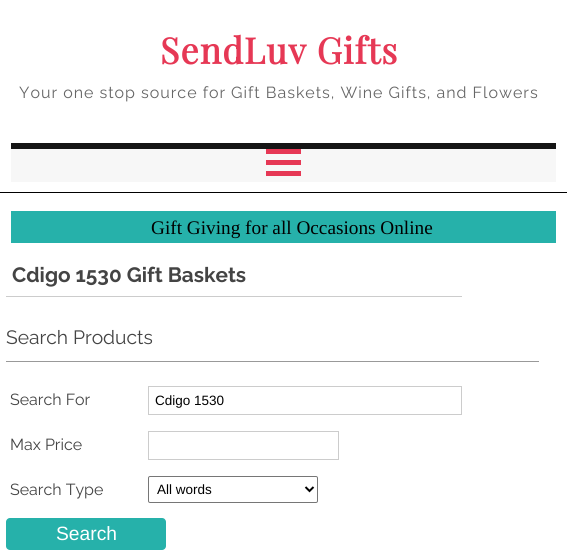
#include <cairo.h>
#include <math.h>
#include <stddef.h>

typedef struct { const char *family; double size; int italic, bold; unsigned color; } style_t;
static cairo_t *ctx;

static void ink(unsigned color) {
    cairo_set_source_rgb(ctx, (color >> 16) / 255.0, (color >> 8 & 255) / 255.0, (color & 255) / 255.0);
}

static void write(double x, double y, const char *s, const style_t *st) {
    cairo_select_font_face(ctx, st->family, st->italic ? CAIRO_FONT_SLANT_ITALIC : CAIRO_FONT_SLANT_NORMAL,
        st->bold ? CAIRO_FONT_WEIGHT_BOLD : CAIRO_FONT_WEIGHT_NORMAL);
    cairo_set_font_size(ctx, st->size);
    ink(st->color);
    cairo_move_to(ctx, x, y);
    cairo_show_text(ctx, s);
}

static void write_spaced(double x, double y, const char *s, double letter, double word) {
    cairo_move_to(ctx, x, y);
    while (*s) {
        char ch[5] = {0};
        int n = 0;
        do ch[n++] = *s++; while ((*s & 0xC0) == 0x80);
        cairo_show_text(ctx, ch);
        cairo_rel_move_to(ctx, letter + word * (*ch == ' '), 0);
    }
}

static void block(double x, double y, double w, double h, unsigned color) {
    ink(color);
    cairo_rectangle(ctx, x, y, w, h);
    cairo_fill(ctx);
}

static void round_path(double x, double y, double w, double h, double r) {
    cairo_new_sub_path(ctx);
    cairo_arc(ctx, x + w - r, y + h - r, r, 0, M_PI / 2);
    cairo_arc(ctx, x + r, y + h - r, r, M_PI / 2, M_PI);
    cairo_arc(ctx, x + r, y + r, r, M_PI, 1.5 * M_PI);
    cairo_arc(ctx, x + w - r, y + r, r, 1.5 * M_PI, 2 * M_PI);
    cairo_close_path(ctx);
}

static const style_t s1 = {"Liberation Serif", 19.25, 0, 0, 0x000000};
static const style_t s2 = {"Raleway", 20.75, 0, 1, 0x444444};
static const style_t s3 = {"Raleway", 19.25, 0, 0, 0x444444};
static const style_t s4 = {"Raleway", 16, 0, 0, 0x444444};
static const style_t s5 = {"Liberation Sans", 13.5, 0, 0, 0x000000};
static const style_t s6 = {"Liberation Sans", 19.25, 0, 0, 0xffffff};

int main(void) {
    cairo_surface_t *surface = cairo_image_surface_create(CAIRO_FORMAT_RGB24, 567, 553);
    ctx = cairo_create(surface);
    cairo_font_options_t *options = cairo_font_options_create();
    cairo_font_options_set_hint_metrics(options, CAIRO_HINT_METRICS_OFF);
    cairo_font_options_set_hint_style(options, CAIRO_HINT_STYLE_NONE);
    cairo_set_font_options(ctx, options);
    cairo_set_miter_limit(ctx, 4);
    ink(0xffffff);
    cairo_paint(ctx);
    block(0, 192, 567, 1, 0x000000);
    cairo_select_font_face(ctx, "Playfair Display", CAIRO_FONT_SLANT_NORMAL, CAIRO_FONT_WEIGHT_BOLD);
    cairo_set_font_size(ctx, 36);
    ink(0xe63855);
    write_spaced(160, 64, "SendLuv Gifts", 1, 0);
    cairo_select_font_face(ctx, "Raleway", CAIRO_FONT_SLANT_NORMAL, CAIRO_FONT_WEIGHT_NORMAL);
    cairo_set_font_size(ctx, 16);
    ink(0x666666);
    write_spaced(19, 98, "Your one stop source for Gift Baskets, Wine Gifts, and Flowers", 1, 0);
    block(11, 143, 545, 6, 0x151515);
    block(11, 149, 545, 33, 0xf7f7f7);
    block(266, 149, 35, 5, 0xe63855);
    block(266, 160, 35, 5, 0xe63855);
    block(266, 171, 35, 5, 0xe63855);
    block(11, 211, 545, 32, 0x26b1aa);
    write(151, 234, "Gift Giving for all Occasions Online", &s1);
    block(6, 296, 456, 1, 0xcccccc);
    write(12, 282, "Cdigo 1530 Gift Baskets", &s2);
    block(6, 361, 533, 1, 0x999999);
    write(6, 344, "Search Products", &s3);
    write(10, 405, "Search For", &s4);
    cairo_rectangle(ctx, 148.5, 386.5, 313, 28);
    ink(0xcccccc);
    cairo_set_line_width(ctx, 1);
    cairo_stroke(ctx);
    write(155, 405, "Cdigo 1530", &s5);
    write(10, 450, "Max Price", &s4);
    cairo_rectangle(ctx, 148.5, 431.5, 190, 28);
    ink(0xcccccc);
    cairo_stroke(ctx);
    write(10, 495, "Search Type", &s4);
    round_path(148.5, 476.5, 169, 26, 1.5);
    ink(0x767676);
    cairo_stroke(ctx);
    cairo_new_path(ctx);
    cairo_move_to(ctx, 305.5, 487);
    cairo_line_to(ctx, 309.5, 491);
    cairo_line_to(ctx, 313.5, 487);
    ink(0x000000);
    cairo_set_line_width(ctx, 2);
    cairo_stroke(ctx);
    write(157, 494, "All words", &s5);
    ink(0x26b1aa);
    round_path(6, 518, 160, 32, 4);
    cairo_fill(ctx);
    write(56, 540, "Search", &s6);
    cairo_surface_write_to_png(surface, "screenshot.png");
    cairo_font_options_destroy(options);
    cairo_destroy(ctx);
    cairo_surface_destroy(surface);
    return 0;
}
